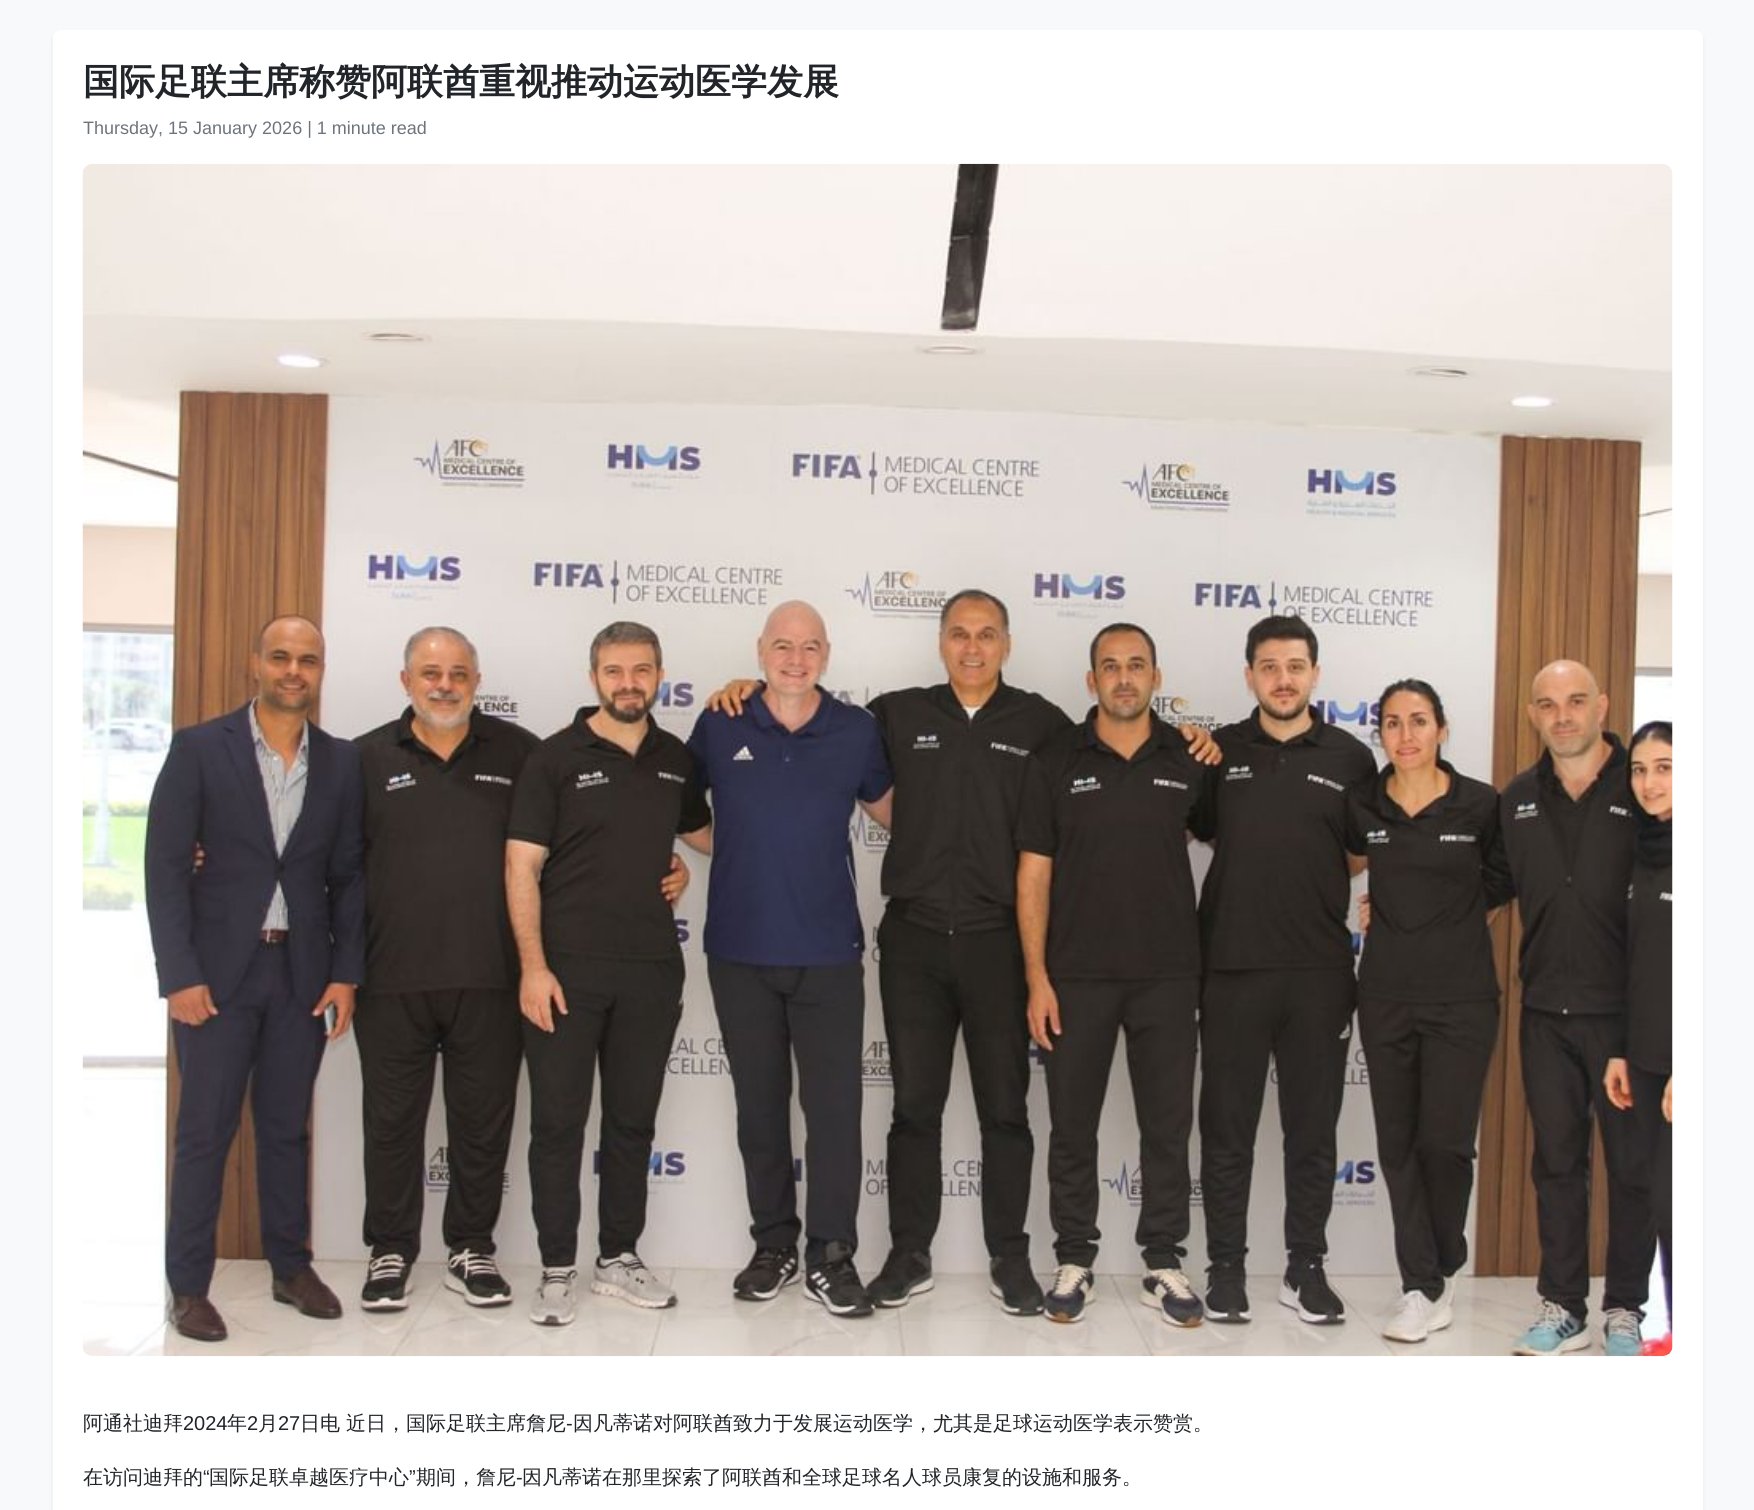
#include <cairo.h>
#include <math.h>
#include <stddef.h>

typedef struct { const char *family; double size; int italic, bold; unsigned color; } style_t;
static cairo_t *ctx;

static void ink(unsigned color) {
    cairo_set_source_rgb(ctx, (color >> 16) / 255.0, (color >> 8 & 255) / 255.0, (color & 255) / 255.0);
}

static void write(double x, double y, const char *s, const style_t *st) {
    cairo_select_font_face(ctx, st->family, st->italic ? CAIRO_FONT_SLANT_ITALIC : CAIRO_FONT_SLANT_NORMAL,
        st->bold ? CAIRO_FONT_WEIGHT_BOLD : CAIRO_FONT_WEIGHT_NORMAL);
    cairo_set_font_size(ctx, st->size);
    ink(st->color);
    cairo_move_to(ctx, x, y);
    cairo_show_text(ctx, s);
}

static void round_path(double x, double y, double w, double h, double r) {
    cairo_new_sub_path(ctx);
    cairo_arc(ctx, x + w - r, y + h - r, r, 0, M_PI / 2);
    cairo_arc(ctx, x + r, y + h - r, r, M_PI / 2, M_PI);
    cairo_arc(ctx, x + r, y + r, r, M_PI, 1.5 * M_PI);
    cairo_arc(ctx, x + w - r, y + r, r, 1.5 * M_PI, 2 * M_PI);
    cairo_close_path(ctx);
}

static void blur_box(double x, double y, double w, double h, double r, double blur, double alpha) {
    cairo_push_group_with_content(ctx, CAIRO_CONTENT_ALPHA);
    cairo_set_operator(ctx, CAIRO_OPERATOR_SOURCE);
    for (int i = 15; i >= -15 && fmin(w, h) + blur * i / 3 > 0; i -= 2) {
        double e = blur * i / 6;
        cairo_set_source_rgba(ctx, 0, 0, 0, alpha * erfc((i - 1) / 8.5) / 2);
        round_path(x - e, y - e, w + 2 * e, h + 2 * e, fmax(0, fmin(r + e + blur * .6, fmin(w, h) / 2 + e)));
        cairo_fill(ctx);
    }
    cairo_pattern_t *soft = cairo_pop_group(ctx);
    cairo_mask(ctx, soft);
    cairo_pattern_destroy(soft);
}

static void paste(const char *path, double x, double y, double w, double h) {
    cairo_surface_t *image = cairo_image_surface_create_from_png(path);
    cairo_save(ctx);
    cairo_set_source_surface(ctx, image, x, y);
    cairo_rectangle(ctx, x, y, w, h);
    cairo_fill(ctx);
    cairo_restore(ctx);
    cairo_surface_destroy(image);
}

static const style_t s1 = {"WenQuanYi Zen Hei", 36, 0, 1, 0x212529};
static const style_t s2 = {"Liberation Sans", 18, 0, 0, 0x6c757d};
static const style_t s3 = {"WenQuanYi Zen Hei Medium", 20, 0, 0, 0x212529};
static const style_t s4 = {"Liberation Sans", 20, 0, 0, 0x212529};

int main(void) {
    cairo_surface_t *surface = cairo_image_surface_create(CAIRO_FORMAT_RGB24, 1754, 1510);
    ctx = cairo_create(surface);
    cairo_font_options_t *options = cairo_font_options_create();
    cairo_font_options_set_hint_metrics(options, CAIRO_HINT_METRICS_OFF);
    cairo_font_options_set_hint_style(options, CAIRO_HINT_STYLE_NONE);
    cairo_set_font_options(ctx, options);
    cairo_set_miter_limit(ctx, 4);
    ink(0xf8f9fa);
    cairo_paint(ctx);
    ink(0x000000);
    blur_box(53, 33, 1650, 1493, 8, 2.5, 0.07);
    ink(0xffffff);
    round_path(53, 30, 1650, 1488, 8);
    cairo_fill(ctx);
    write(83, 94, "国际足联主席称赞阿联酋重视推动运动医学发展", &s1);
    write(83, 134, "Thursday, 15 January 2026 | 1 minute read", &s2);
    paste("pic1.png", 82, 163, 1591, 1194);
    write(83, 1430, "阿通社迪拜", &s3);
    write(183, 1430, "2024", &s4);
    write(227, 1430, "年", &s3);
    write(247, 1430, "2", &s4);
    write(258, 1430, "月", &s3);
    write(278, 1430, "27", &s4);
    write(300, 1430, "日电", &s3);
    write(346, 1430, "近日，国际足联主席詹尼", &s3);
    write(566, 1430, "-", &s4);
    write(573, 1430, "因凡蒂诺对阿联酋致力于发展运动医学，尤其是足球运动医学表示赞赏。", &s3);
    write(83, 1484, "在访问迪拜的", &s3);
    write(203, 1484, "“", &s4);
    write(209, 1484, "国际足联卓越医疗中心", &s3);
    write(409, 1484, "”", &s4);
    write(416, 1484, "期间，詹尼", &s3);
    write(522, 1484, "因凡蒂诺在那里探索了阿联酋和全球足球名人球员康复的设施和服务。", &s3);
    write(516, 1484, "-", &s4);
    cairo_surface_write_to_png(surface, "screenshot.png");
    cairo_font_options_destroy(options);
    cairo_destroy(ctx);
    cairo_surface_destroy(surface);
    return 0;
}
